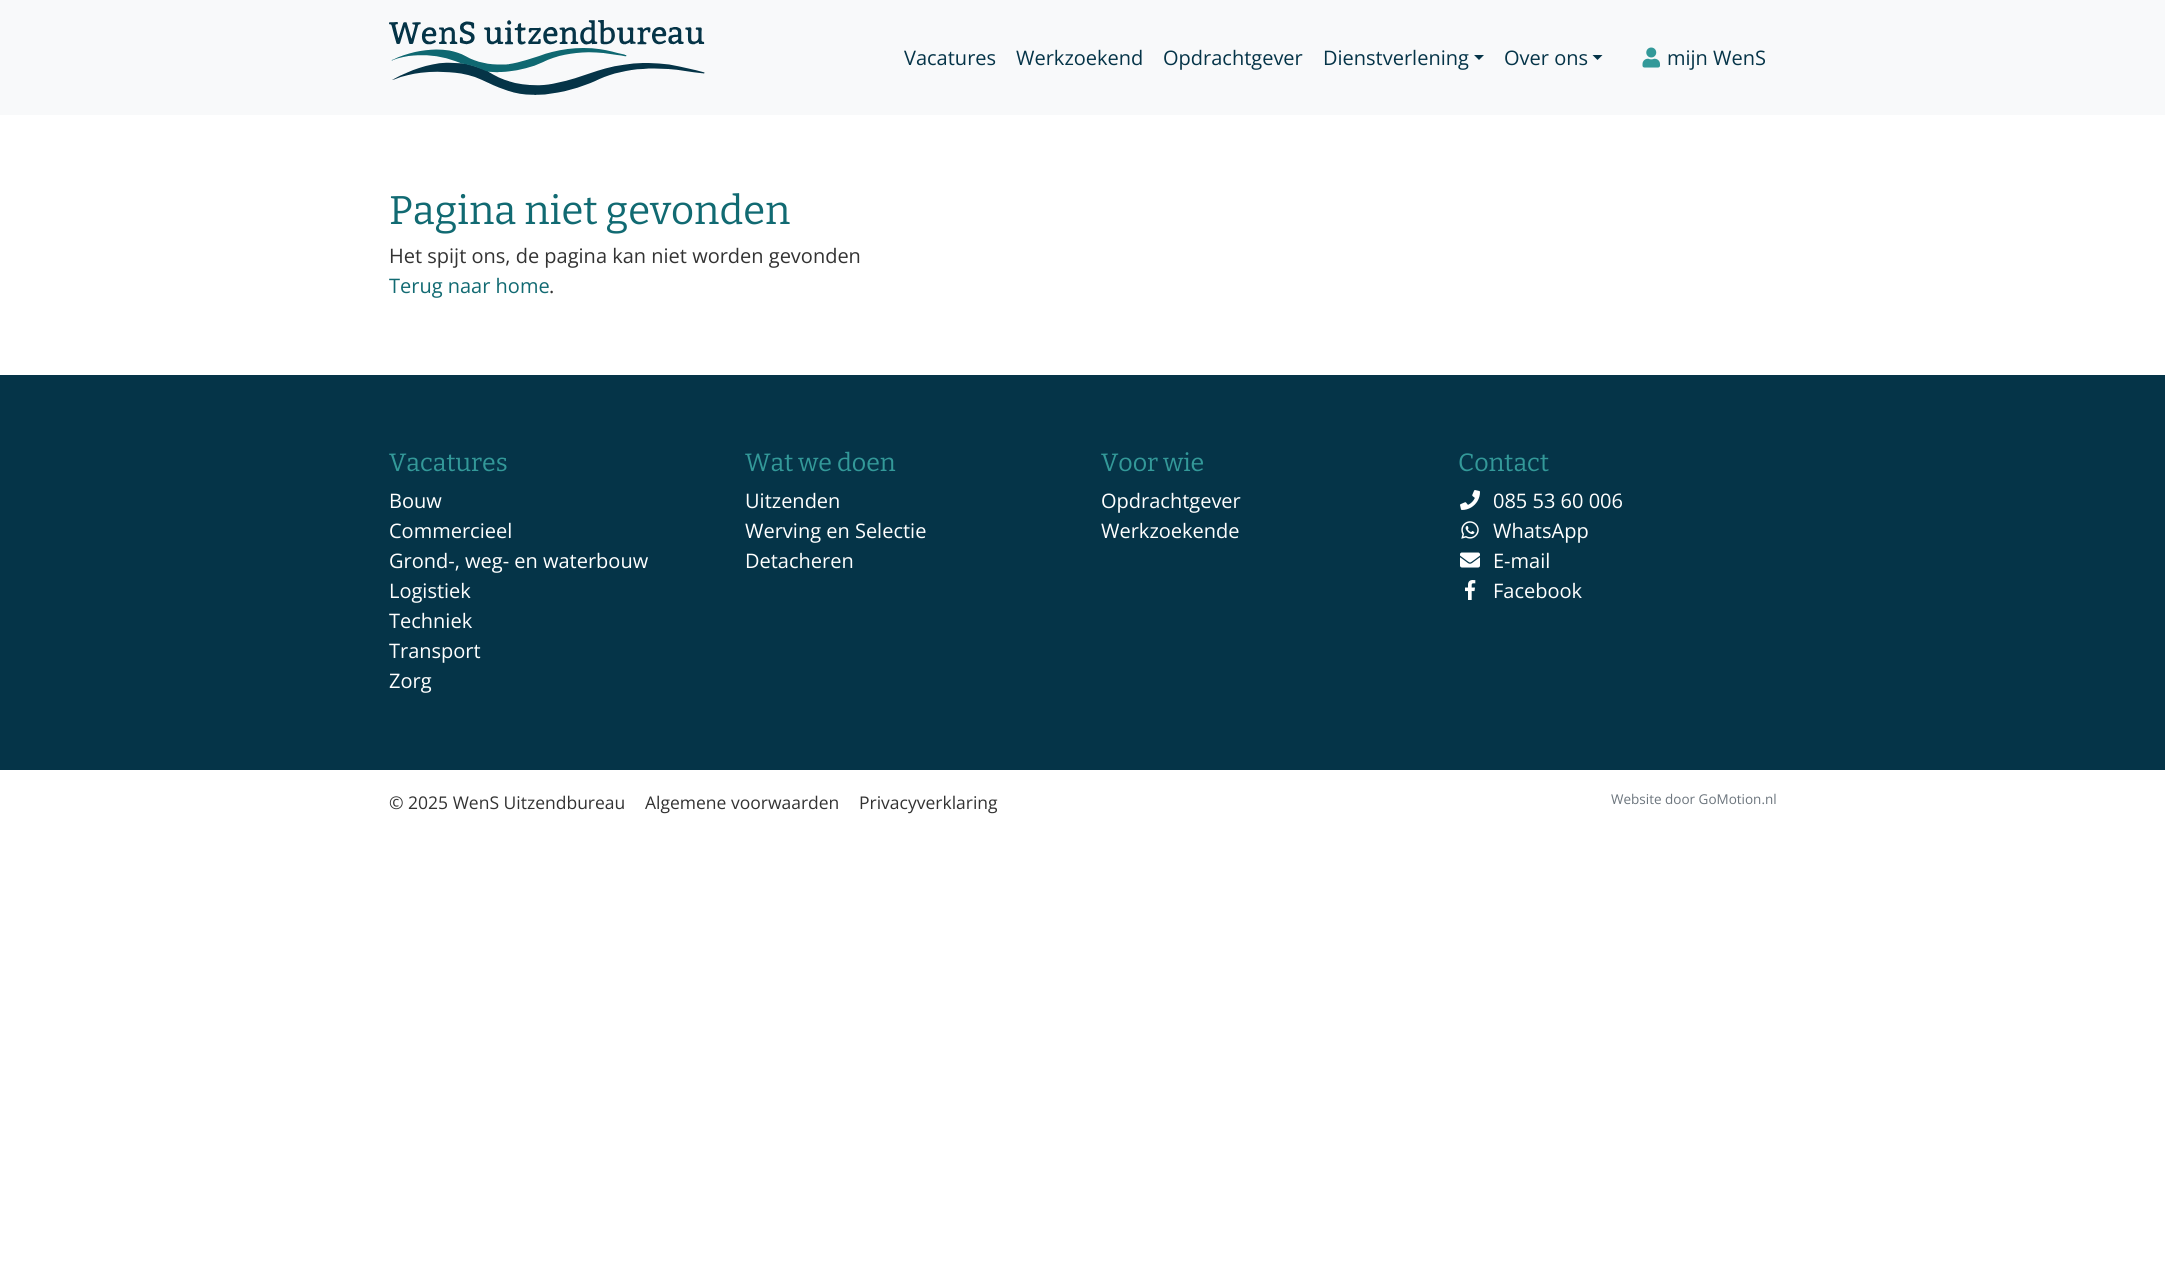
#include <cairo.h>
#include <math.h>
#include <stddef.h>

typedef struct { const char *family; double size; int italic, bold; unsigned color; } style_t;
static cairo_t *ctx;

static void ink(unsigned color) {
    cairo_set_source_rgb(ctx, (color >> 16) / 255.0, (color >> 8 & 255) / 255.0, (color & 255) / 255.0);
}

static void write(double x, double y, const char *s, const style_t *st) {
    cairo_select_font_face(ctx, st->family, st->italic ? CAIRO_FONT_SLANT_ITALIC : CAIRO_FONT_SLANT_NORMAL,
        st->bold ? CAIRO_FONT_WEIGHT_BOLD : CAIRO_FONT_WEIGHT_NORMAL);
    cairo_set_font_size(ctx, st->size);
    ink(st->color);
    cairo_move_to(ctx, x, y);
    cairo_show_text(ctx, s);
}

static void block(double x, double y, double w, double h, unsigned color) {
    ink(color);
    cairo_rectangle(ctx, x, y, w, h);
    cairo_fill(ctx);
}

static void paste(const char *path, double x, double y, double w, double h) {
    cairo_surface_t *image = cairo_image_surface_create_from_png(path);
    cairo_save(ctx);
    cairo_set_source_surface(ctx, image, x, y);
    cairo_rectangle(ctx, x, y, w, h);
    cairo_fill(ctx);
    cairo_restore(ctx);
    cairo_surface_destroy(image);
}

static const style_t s1 = {"Open Sans", 20, 0, 0, 0x053448};
static const style_t s2 = {"Bitter", 40, 0, 0, 0x116a72};
static const style_t s3 = {"Open Sans", 20, 0, 0, 0x333333};
static const style_t s4 = {"Open Sans", 20, 0, 0, 0x116a72};
static const style_t s5 = {"Bitter", 25, 0, 0, 0x339999};
static const style_t s6 = {"Open Sans", 20, 0, 0, 0xffffff};
static const style_t s7 = {"Open Sans", 17.5, 0, 0, 0x333333};
static const style_t s8 = {"Open Sans", 13.5, 0, 0, 0x6c757d};

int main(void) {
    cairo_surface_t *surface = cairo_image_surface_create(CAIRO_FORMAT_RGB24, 2165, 1279);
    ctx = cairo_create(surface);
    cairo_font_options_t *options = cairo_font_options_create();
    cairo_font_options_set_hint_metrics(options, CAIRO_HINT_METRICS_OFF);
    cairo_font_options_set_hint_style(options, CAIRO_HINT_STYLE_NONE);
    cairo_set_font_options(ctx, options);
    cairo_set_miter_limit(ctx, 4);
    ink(0xffffff);
    cairo_paint(ctx);
    block(0, 0, 2165, 115, 0xf8f9fa);
    paste("pic1.png", 389, 20, 316, 75);
    write(904, 65, "Vacatures", &s1);
    write(1016, 65, "Werkzoekend", &s1);
    write(1163, 65, "Opdrachtgever", &s1);
    write(1323, 65, "Dienstverlening", &s1);
    cairo_new_path(ctx);
    cairo_move_to(ctx, 1474, 55);
    cairo_line_to(ctx, 1484, 55);
    cairo_line_to(ctx, 1479, 60);
    cairo_close_path(ctx);
    cairo_fill(ctx);
    write(1504, 65, "Over ons", &s1);
    cairo_new_path(ctx);
    cairo_move_to(ctx, 1592.5, 55);
    cairo_line_to(ctx, 1602.5, 55);
    cairo_line_to(ctx, 1597.5, 60);
    cairo_close_path(ctx);
    cairo_fill(ctx);
    paste("pic2.png", 1642, 47, 18, 21);
    write(1667, 65, "mijn WenS", &s1);
    write(389, 224, "Pagina niet gevonden", &s2);
    write(389, 263, "Het spijt ons, de pagina kan niet worden gevonden", &s3);
    write(389, 293, "Terug naar home", &s4);
    write(549, 293, ".", &s3);
    block(0, 375, 2165, 395, 0x053448);
    write(389, 471, "Vacatures", &s5);
    write(389, 508, "Bouw", &s6);
    write(389, 538, "Commercieel", &s6);
    write(389, 568, "Grond-, weg- en waterbouw", &s6);
    write(389, 598, "Logistiek", &s6);
    write(389, 628, "Techniek", &s6);
    write(389, 658, "Transport", &s6);
    write(389, 688, "Zorg", &s6);
    write(745, 471, "Wat we doen", &s5);
    write(745, 508, "Uitzenden", &s6);
    write(745, 538, "Werving en Selectie", &s6);
    write(745, 568, "Detacheren", &s6);
    write(1101, 471, "Voor wie", &s5);
    write(1101, 508, "Opdrachtgever", &s6);
    write(1101, 538, "Werkzoekende", &s6);
    write(1458, 471, "Contact", &s5);
    paste("pic3.png", 1460, 490, 20, 20);
    write(1493, 508, "085 53 60 006", &s6);
    paste("pic4.png", 1461, 521, 18, 18);
    write(1493, 538, "WhatsApp", &s6);
    paste("pic5.png", 1460, 552, 20, 16);
    write(1493, 568, "E-mail", &s6);
    paste("pic6.png", 1465, 580, 11, 20);
    write(1493, 598, "Facebook", &s6);
    write(389, 809, "© 2025 WenS Uitzendbureau", &s7);
    write(645, 809, "Algemene voorwaarden", &s7);
    write(859, 809, "Privacyverklaring", &s7);
    write(1611, 804, "Website door GoMotion.nl", &s8);
    cairo_surface_write_to_png(surface, "screenshot.png");
    cairo_font_options_destroy(options);
    cairo_destroy(ctx);
    cairo_surface_destroy(surface);
    return 0;
}
